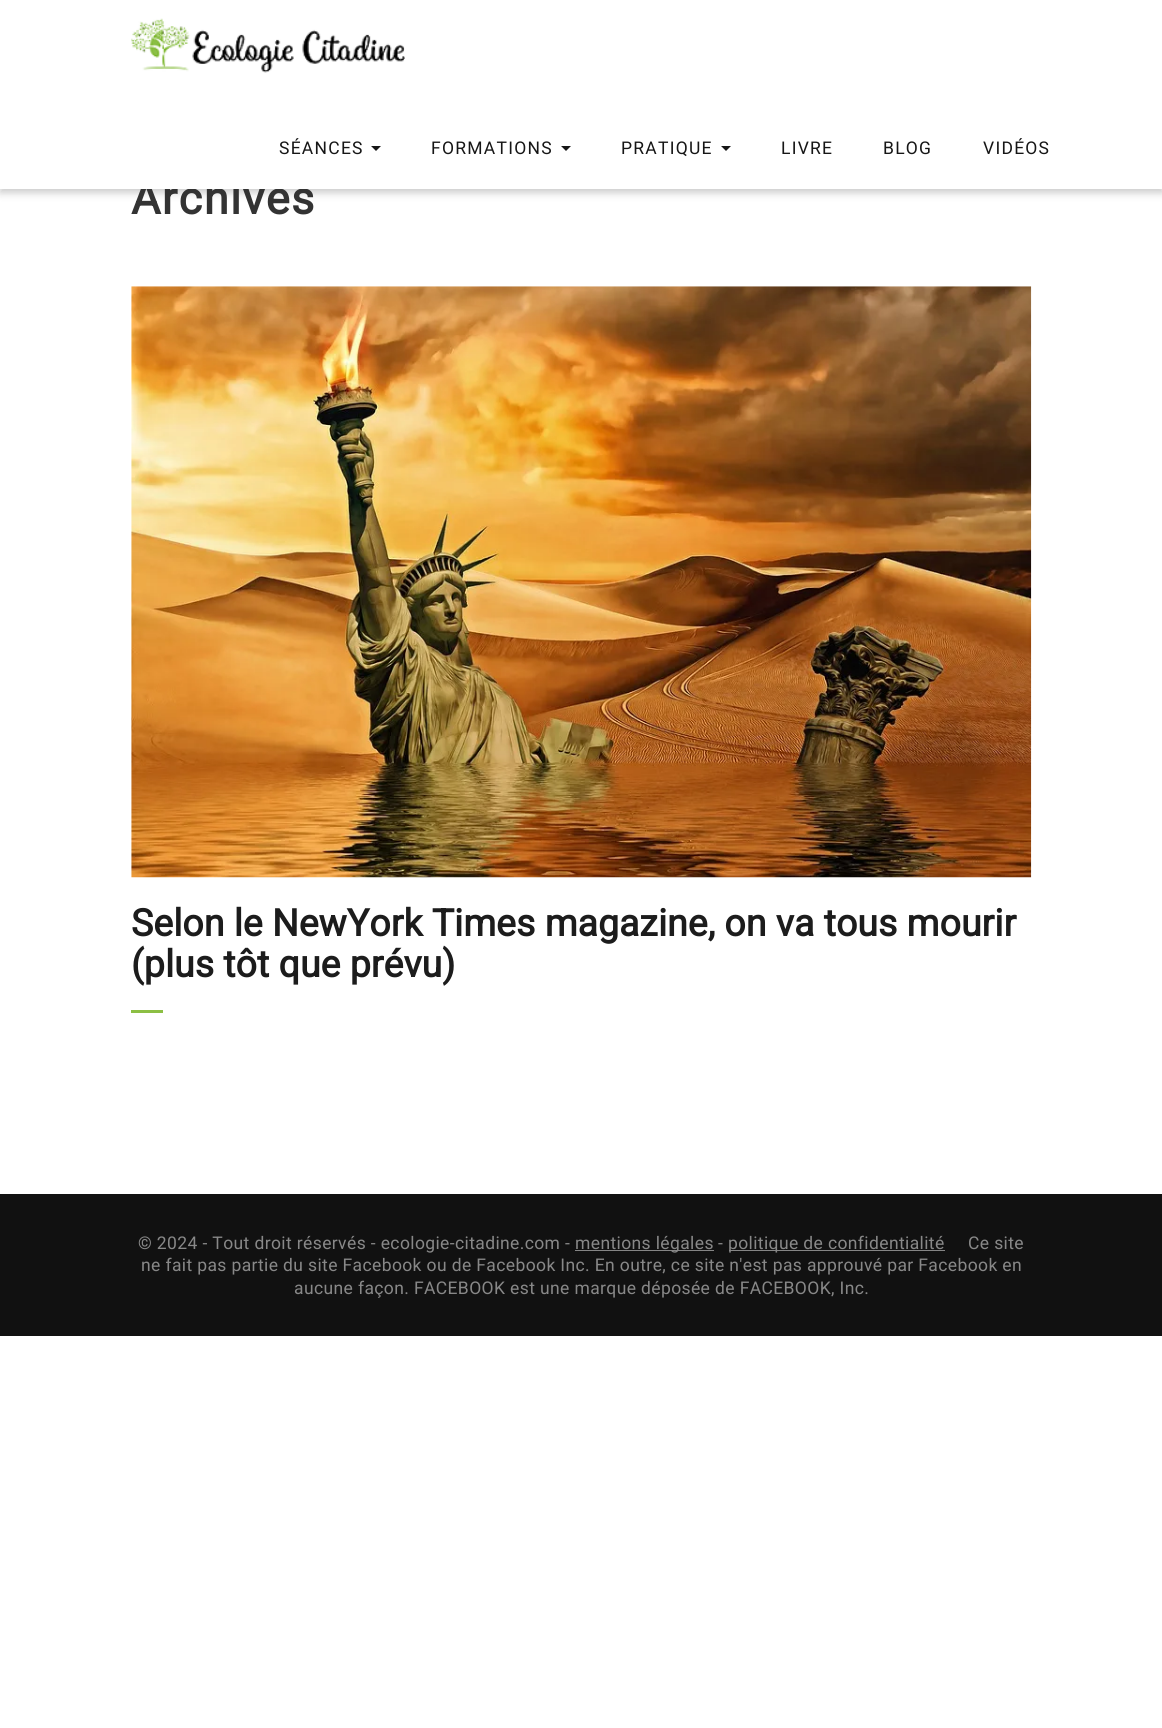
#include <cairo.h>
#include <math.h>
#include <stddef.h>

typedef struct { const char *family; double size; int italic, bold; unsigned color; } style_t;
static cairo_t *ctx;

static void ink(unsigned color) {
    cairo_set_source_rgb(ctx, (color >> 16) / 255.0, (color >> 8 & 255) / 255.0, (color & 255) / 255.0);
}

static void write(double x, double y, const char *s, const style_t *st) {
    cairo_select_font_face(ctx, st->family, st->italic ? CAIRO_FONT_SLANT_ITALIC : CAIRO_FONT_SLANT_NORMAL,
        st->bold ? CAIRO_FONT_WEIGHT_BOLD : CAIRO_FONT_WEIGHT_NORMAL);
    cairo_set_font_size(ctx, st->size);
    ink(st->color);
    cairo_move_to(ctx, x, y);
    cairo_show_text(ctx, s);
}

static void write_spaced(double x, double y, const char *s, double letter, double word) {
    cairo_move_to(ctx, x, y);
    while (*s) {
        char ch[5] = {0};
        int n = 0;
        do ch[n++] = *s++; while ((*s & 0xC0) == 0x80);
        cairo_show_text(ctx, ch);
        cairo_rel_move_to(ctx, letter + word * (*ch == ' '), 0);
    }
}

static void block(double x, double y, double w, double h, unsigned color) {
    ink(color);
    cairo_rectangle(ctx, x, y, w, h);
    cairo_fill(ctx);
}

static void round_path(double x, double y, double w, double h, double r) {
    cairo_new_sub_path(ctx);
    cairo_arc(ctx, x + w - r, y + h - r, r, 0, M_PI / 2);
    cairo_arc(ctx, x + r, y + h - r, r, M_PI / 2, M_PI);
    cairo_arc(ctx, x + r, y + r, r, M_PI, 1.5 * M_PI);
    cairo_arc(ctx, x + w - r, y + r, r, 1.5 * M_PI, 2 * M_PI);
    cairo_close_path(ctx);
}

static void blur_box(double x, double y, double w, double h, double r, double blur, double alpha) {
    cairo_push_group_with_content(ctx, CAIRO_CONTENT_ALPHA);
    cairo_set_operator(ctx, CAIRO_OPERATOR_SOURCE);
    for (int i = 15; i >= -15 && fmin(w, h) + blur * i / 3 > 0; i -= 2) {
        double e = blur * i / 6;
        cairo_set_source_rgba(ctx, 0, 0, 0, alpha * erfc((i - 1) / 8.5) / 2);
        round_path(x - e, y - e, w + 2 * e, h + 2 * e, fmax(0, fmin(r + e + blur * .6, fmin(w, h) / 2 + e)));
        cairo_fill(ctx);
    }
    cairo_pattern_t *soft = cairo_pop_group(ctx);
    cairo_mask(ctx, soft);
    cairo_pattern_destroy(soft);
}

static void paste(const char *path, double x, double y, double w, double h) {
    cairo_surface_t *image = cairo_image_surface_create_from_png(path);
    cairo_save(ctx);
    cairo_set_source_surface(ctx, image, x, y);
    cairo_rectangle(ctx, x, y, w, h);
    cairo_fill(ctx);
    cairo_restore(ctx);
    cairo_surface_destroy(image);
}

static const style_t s1 = {"Roboto", 37.5, 0, 1, 0x1c1c1c};

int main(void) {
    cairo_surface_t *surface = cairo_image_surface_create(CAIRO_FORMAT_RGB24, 1162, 1728);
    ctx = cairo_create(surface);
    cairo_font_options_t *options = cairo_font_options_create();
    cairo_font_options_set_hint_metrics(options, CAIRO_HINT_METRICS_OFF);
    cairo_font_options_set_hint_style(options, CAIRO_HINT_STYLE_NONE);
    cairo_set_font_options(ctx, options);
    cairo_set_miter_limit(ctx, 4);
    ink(0xffffff);
    cairo_paint(ctx);
    ink(0x000000);
    blur_box(0, 4, 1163, 189, 0, 4, 0.2);
    cairo_select_font_face(ctx, "Roboto", CAIRO_FONT_SLANT_NORMAL, CAIRO_FONT_WEIGHT_BOLD);
    cairo_set_font_size(ctx, 45);
    ink(0x333333);
    write_spaced(131, 214, "Archives", 1.5, 0);
    block(0, 0, 1162, 189, 0xffffff);
    paste("pic1.png", 131, 18, 274, 55);
    cairo_select_font_face(ctx, "Roboto", CAIRO_FONT_SLANT_NORMAL, CAIRO_FONT_WEIGHT_NORMAL);
    cairo_set_font_size(ctx, 17.5);
    ink(0x161616);
    write_spaced(279, 154, "SÉANCES", 1.25, 0);
    cairo_new_path(ctx);
    cairo_move_to(ctx, 371, 146);
    cairo_line_to(ctx, 381, 146);
    cairo_line_to(ctx, 376, 151);
    cairo_close_path(ctx);
    cairo_fill(ctx);
    write_spaced(431, 154, "FORMATIONS", 1.25, 0);
    cairo_new_path(ctx);
    cairo_move_to(ctx, 561, 146);
    cairo_line_to(ctx, 571, 146);
    cairo_line_to(ctx, 566, 151);
    cairo_close_path(ctx);
    cairo_fill(ctx);
    write_spaced(621, 154, "PRATIQUE", 1.25, 0);
    cairo_new_path(ctx);
    cairo_move_to(ctx, 721, 146);
    cairo_line_to(ctx, 731, 146);
    cairo_line_to(ctx, 726, 151);
    cairo_close_path(ctx);
    cairo_fill(ctx);
    write_spaced(781, 154, "LIVRE", 1.25, 0);
    write_spaced(883, 154, "BLOG", 1.25, 0);
    write_spaced(983, 154, "VIDÉOS", 1.25, 0);
    paste("pic2.png", 131, 286, 901, 592);
    write(131, 936, "Selon le NewYork Times magazine, on va tous mourir", &s1);
    write(131, 977, "(plus tôt que prévu)", &s1);
    block(131, 1010, 32, 3, 0x8cbf44);
    block(0, 1194, 1162, 142, 0x111111);
    cairo_select_font_face(ctx, "Roboto", CAIRO_FONT_SLANT_NORMAL, CAIRO_FONT_WEIGHT_NORMAL);
    cairo_set_font_size(ctx, 17.5);
    ink(0x888888);
    write_spaced(138, 1249, "© 2024 - Tout droit réservés - ecologie-citadine.com -", 0.38, 0);
    block(575, 1250, 139, 1, 0x858585);
    ink(0x888888);
    write_spaced(575, 1249, "mentions légales", 0.38, 0);
    write_spaced(718, 1249, "-", 0.38, 0);
    block(729, 1250, 216, 1, 0x858585);
    ink(0x888888);
    write_spaced(728, 1249, "politique de confidentialité", 0.38, 0);
    write_spaced(968, 1249, "Ce site", 0.38, 0);
    write_spaced(141, 1271, "ne fait pas partie du site Facebook ou de Facebook Inc. En outre, ce site n'est pas approuvé par Facebook en", 0.38, 0);
    write_spaced(294, 1294, "aucune façon. FACEBOOK est une marque déposée de FACEBOOK, Inc.", 0.38, 0);
    cairo_surface_write_to_png(surface, "screenshot.png");
    cairo_font_options_destroy(options);
    cairo_destroy(ctx);
    cairo_surface_destroy(surface);
    return 0;
}
